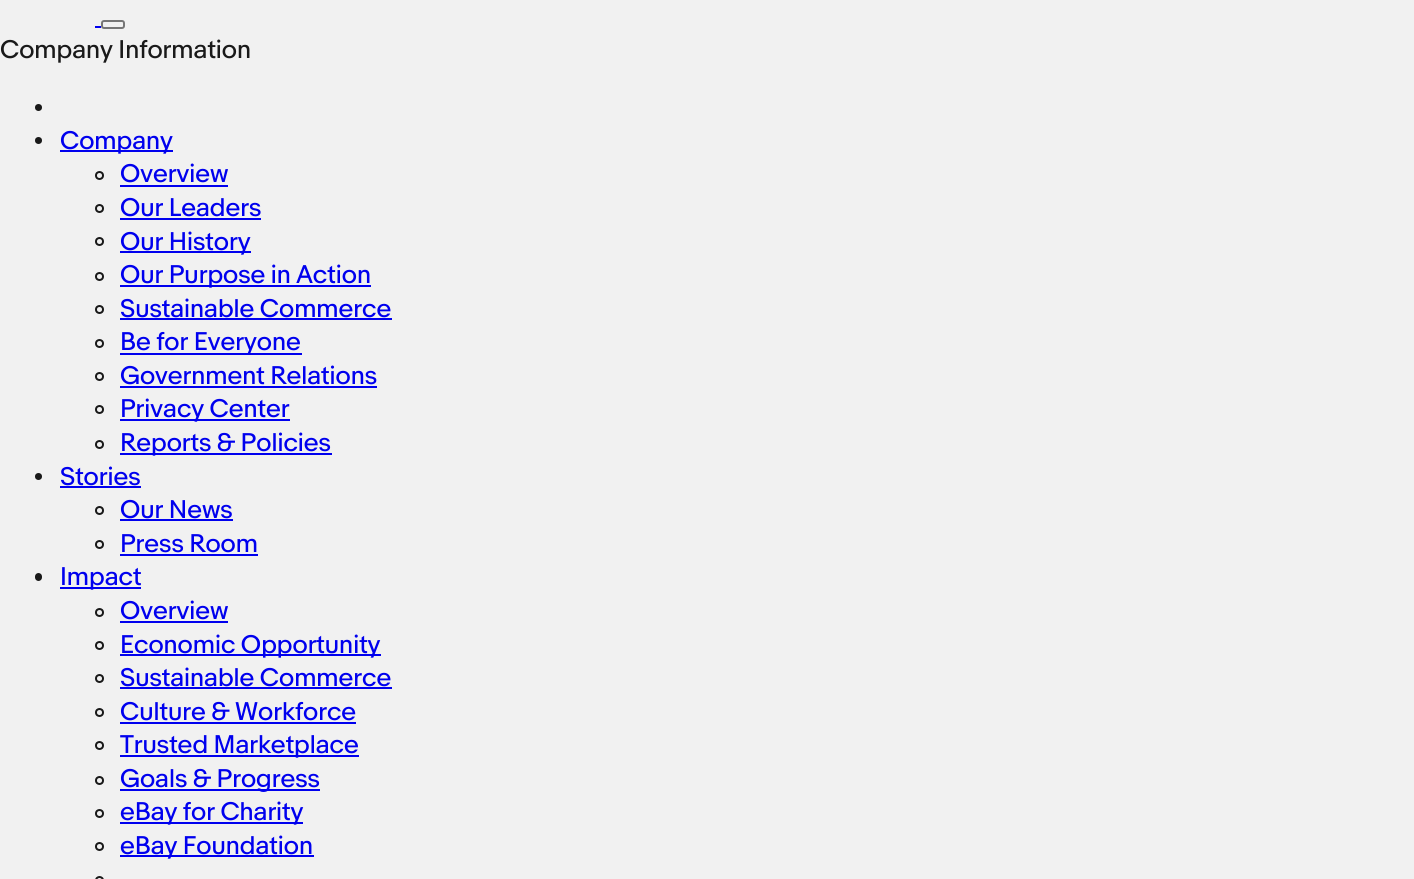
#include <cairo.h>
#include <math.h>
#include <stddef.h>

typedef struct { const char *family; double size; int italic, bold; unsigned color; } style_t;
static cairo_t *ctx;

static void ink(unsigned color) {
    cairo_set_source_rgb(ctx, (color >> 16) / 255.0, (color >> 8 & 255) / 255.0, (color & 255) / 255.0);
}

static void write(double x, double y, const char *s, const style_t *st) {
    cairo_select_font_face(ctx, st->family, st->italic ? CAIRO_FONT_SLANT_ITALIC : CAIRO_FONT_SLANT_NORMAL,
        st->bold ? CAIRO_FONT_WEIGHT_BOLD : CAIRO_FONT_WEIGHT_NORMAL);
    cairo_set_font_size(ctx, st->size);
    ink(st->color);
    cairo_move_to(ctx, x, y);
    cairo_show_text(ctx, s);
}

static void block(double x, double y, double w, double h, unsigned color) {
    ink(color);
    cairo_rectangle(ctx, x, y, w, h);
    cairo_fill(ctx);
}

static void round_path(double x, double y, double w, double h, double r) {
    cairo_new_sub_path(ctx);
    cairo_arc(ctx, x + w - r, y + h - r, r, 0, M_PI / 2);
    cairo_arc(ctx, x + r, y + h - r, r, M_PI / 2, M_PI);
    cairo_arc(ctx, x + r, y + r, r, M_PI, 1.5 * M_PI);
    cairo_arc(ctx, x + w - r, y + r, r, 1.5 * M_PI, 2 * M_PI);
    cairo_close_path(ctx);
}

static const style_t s1 = {"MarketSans", 24, 0, 0, 0x191919};
static const style_t s2 = {"MarketSans", 24, 0, 0, 0x0000ee};

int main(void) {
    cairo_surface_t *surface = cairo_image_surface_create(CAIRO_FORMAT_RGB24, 1414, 879);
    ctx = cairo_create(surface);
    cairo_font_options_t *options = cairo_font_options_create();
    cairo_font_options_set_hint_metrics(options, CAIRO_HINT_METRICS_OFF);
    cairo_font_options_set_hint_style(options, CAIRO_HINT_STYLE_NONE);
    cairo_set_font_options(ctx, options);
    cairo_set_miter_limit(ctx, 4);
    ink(0xf1f1f1);
    cairo_paint(ctx);
    block(95, 26, 6, 2, 0x0000ee);
    round_path(102, 21, 22, 7, 2);
    ink(0x767676);
    cairo_stroke(ctx);
    write(0, 58, "Company Information", &s1);
    cairo_new_path(ctx);
    cairo_arc(ctx, 38.5, 107.5, 3.5, 0, 2 * M_PI);
    cairo_fill(ctx);
    cairo_arc(ctx, 38.5, 140.5, 3.5, 0, 2 * M_PI);
    cairo_fill(ctx);
    block(60, 150, 113, 2, 0x0000ee);
    write(60, 149, "Company", &s2);
    cairo_new_path(ctx);
    cairo_arc(ctx, 99.5, 175.5, 3.5, 0, 2 * M_PI);
    ink(0x191919);
    cairo_stroke(ctx);
    write(120, 182, "Overview", &s2);
    block(120, 185, 108, 2, 0x0000ee);
    cairo_new_path(ctx);
    cairo_arc(ctx, 99.5, 208.5, 3.5, 0, 2 * M_PI);
    ink(0x191919);
    cairo_stroke(ctx);
    write(120, 216, "Our Leaders", &s2);
    block(120, 218, 141, 2, 0x0000ee);
    cairo_new_path(ctx);
    cairo_arc(ctx, 99.5, 241.5, 3.5, 0, 2 * M_PI);
    ink(0x191919);
    cairo_stroke(ctx);
    block(120, 251, 131, 2, 0x0000ee);
    write(120, 250, "Our History", &s2);
    cairo_new_path(ctx);
    cairo_arc(ctx, 99.5, 276.5, 3.5, 0, 2 * M_PI);
    ink(0x191919);
    cairo_stroke(ctx);
    block(120, 285, 251, 2, 0x0000ee);
    write(120, 283, "Our Purpose in Action", &s2);
    cairo_new_path(ctx);
    cairo_arc(ctx, 99.5, 309.5, 3.5, 0, 2 * M_PI);
    ink(0x191919);
    cairo_stroke(ctx);
    write(120, 317, "Sustainable Commerce", &s2);
    block(120, 318, 272, 2, 0x0000ee);
    cairo_new_path(ctx);
    cairo_arc(ctx, 99.5, 343.5, 3.5, 0, 2 * M_PI);
    ink(0x191919);
    cairo_stroke(ctx);
    block(120, 353, 182, 2, 0x0000ee);
    write(120, 350, "Be for Everyone", &s2);
    cairo_new_path(ctx);
    cairo_arc(ctx, 99.5, 376.5, 3.5, 0, 2 * M_PI);
    ink(0x191919);
    cairo_stroke(ctx);
    write(120, 384, "Government Relations", &s2);
    block(120, 386, 257, 2, 0x0000ee);
    cairo_new_path(ctx);
    cairo_arc(ctx, 99.5, 409.5, 3.5, 0, 2 * M_PI);
    ink(0x191919);
    cairo_stroke(ctx);
    block(120, 419, 170, 2, 0x0000ee);
    write(120, 417, "Privacy Center", &s2);
    cairo_new_path(ctx);
    cairo_arc(ctx, 99.5, 444.5, 3.5, 0, 2 * M_PI);
    ink(0x191919);
    cairo_stroke(ctx);
    block(120, 453, 212, 2, 0x0000ee);
    write(120, 451, "Reports & Policies", &s2);
    ink(0x191919);
    cairo_new_path(ctx);
    cairo_arc(ctx, 38.5, 476.5, 3.5, 0, 2 * M_PI);
    cairo_fill(ctx);
    write(60, 485, "Stories", &s2);
    block(60, 486, 81, 2, 0x0000ee);
    cairo_new_path(ctx);
    cairo_arc(ctx, 99.5, 510.5, 3.5, 0, 2 * M_PI);
    ink(0x191919);
    cairo_stroke(ctx);
    write(120, 518, "Our News", &s2);
    block(120, 519, 113, 2, 0x0000ee);
    cairo_new_path(ctx);
    cairo_arc(ctx, 99.5, 544.5, 3.5, 0, 2 * M_PI);
    ink(0x191919);
    cairo_stroke(ctx);
    write(120, 552, "Press Room", &s2);
    block(120, 554, 138, 2, 0x0000ee);
    ink(0x191919);
    round_path(35, 573, 7, 8, 3.5);
    cairo_fill(ctx);
    block(60, 587, 81, 2, 0x0000ee);
    write(60, 585, "Impact", &s2);
    cairo_new_path(ctx);
    cairo_arc(ctx, 99.5, 612.5, 3.5, 0, 2 * M_PI);
    ink(0x191919);
    cairo_stroke(ctx);
    write(120, 619, "Overview", &s2);
    block(120, 621, 108, 2, 0x0000ee);
    cairo_new_path(ctx);
    cairo_arc(ctx, 99.5, 645.5, 3.5, 0, 2 * M_PI);
    ink(0x191919);
    cairo_stroke(ctx);
    block(120, 654, 261, 2, 0x0000ee);
    write(120, 653, "Economic Opportunity", &s2);
    cairo_new_path(ctx);
    cairo_arc(ctx, 99.5, 678.5, 3.5, 0, 2 * M_PI);
    ink(0x191919);
    cairo_stroke(ctx);
    write(120, 686, "Sustainable Commerce", &s2);
    block(120, 687, 272, 2, 0x0000ee);
    cairo_new_path(ctx);
    cairo_arc(ctx, 99.5, 712.5, 3.5, 0, 2 * M_PI);
    ink(0x191919);
    cairo_stroke(ctx);
    write(120, 720, "Culture & Workforce", &s2);
    block(120, 722, 236, 2, 0x0000ee);
    cairo_new_path(ctx);
    cairo_arc(ctx, 99.5, 745.5, 3.5, 0, 2 * M_PI);
    ink(0x191919);
    cairo_stroke(ctx);
    block(120, 755, 239, 2, 0x0000ee);
    write(120, 753, "Trusted Marketplace", &s2);
    cairo_new_path(ctx);
    cairo_arc(ctx, 99.5, 780.5, 3.5, 0, 2 * M_PI);
    ink(0x191919);
    cairo_stroke(ctx);
    block(120, 789, 200, 2, 0x0000ee);
    write(120, 787, "Goals & Progress", &s2);
    cairo_new_path(ctx);
    cairo_arc(ctx, 99.5, 813.5, 3.5, 0, 2 * M_PI);
    ink(0x191919);
    cairo_stroke(ctx);
    block(120, 822, 183, 2, 0x0000ee);
    write(120, 820, "eBay for Charity", &s2);
    cairo_new_path(ctx);
    cairo_arc(ctx, 99.5, 846.5, 3.5, 0, 2 * M_PI);
    ink(0x191919);
    cairo_stroke(ctx);
    block(120, 855, 194, 2, 0x0000ee);
    write(120, 854, "eBay Foundation", &s2);
    cairo_new_path(ctx);
    cairo_arc(ctx, 99.5, 880.5, 3.5, 0, 2 * M_PI);
    ink(0x191919);
    cairo_stroke(ctx);
    cairo_surface_write_to_png(surface, "screenshot.png");
    cairo_font_options_destroy(options);
    cairo_destroy(ctx);
    cairo_surface_destroy(surface);
    return 0;
}
